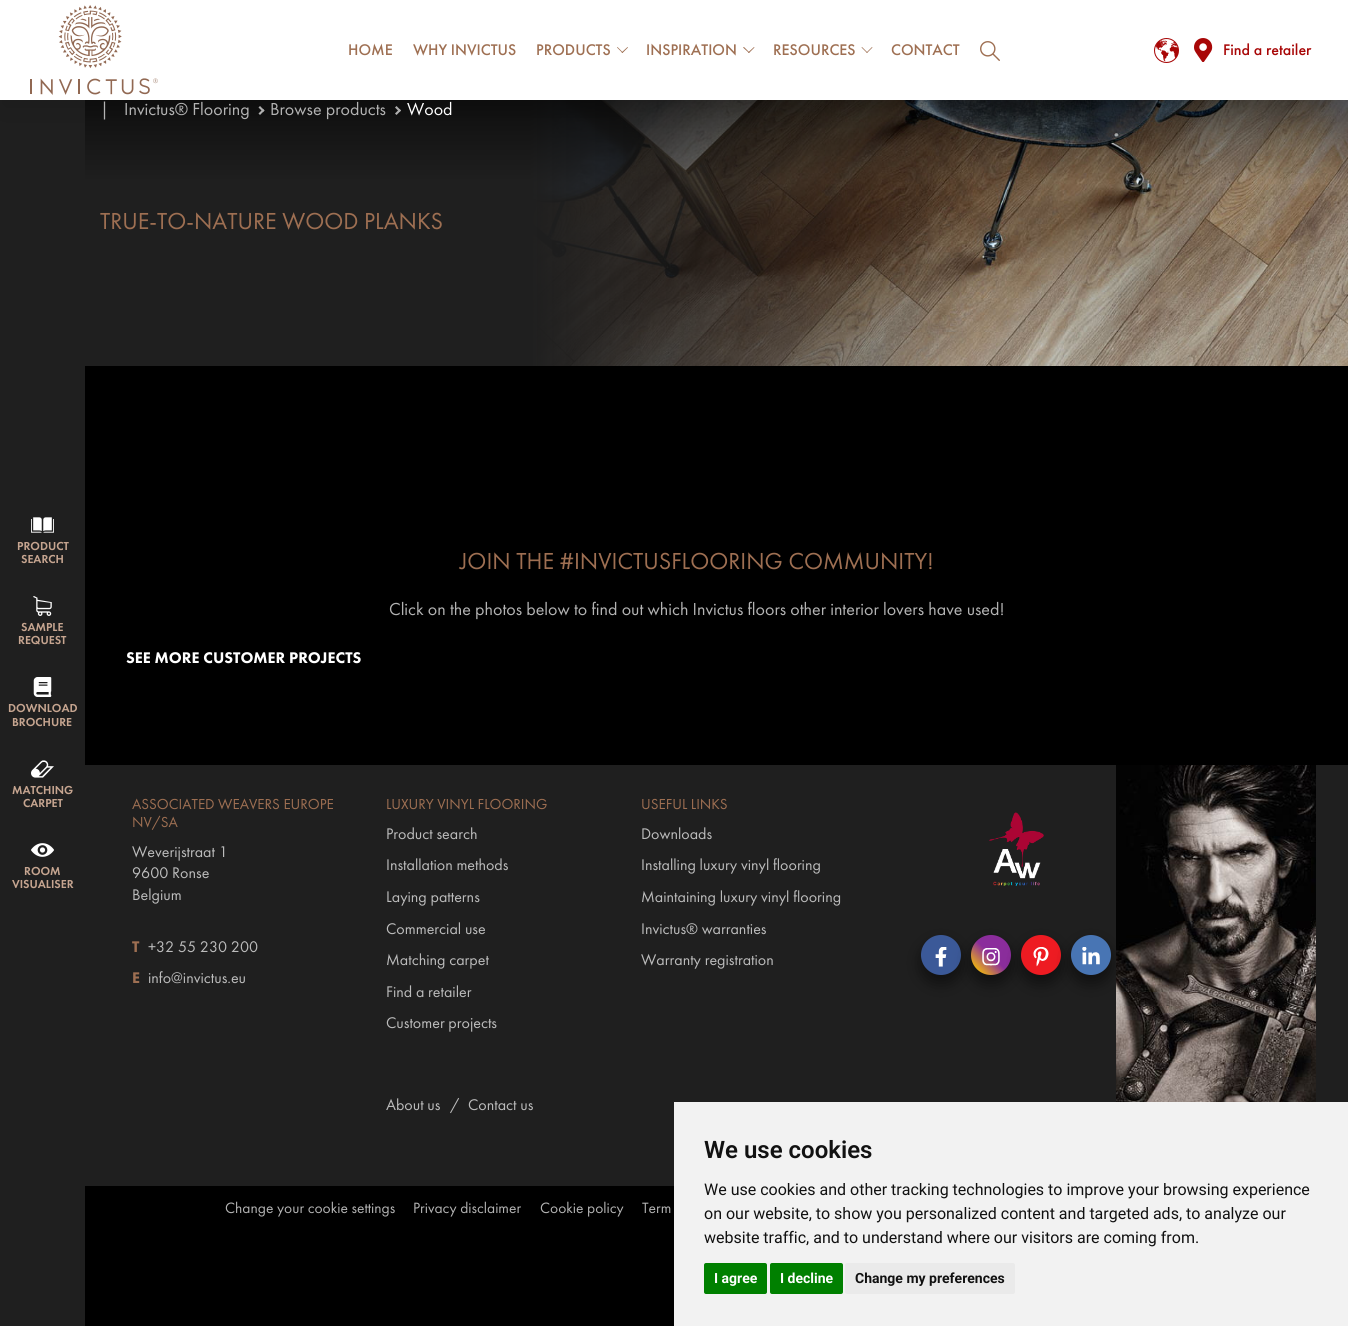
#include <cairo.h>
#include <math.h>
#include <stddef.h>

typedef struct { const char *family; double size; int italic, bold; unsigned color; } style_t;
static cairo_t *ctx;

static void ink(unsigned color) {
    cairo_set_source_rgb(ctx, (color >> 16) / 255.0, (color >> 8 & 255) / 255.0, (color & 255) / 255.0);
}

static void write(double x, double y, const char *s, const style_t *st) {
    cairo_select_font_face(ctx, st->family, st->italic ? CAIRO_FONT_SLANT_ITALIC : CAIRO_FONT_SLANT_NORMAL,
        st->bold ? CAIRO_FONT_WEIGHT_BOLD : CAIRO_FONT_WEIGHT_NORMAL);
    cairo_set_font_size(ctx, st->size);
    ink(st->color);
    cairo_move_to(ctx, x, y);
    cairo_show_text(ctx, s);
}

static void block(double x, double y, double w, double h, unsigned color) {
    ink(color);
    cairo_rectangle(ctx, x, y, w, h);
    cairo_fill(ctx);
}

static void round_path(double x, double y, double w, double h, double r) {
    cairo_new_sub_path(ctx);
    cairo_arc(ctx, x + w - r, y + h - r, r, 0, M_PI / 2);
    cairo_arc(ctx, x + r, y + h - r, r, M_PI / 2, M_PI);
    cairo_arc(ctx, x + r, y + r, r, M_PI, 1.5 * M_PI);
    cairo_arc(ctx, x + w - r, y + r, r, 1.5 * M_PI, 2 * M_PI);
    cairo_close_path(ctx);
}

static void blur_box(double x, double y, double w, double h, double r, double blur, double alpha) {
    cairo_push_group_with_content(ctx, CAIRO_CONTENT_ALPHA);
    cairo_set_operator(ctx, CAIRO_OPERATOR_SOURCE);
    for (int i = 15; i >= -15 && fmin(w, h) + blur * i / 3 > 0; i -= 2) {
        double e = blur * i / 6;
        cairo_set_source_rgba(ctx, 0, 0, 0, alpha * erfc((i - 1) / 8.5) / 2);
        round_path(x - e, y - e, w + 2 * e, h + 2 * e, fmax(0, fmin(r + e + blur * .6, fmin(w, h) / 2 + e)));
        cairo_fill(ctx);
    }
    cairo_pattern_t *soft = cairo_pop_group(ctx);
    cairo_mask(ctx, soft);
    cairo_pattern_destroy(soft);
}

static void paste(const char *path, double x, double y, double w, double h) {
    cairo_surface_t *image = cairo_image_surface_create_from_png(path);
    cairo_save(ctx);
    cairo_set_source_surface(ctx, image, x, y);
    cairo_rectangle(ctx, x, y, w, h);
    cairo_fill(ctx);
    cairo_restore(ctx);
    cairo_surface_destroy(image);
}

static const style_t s1 = {"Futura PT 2 Medium", 16, 0, 0, 0x9e6f52};
static const style_t s2 = {"Futura PT 2 Medium", 16, 0, 0, 0xa80707};
static const style_t s3 = {"Futura PT Medium", 12, 0, 0, 0xc6a590};
static const style_t s4 = {"Futura PT", 18, 0, 0, 0xb3b3b3};
static const style_t s5 = {"Futura PT", 18, 0, 0, 0xffffff};
static const style_t s6 = {"Futura PT", 24, 0, 0, 0x9e6f52};
static const style_t s7 = {"Futura PT Black", 16, 0, 0, 0xffffff};
static const style_t s8 = {"Futura PT", 15, 0, 0, 0x9e6f52};
static const style_t s9 = {"Futura PT", 16, 0, 0, 0xbcbcbc};
static const style_t s10 = {"Futura PT Black", 16, 0, 0, 0x9e6f52};
static const style_t s11 = {"Futura PT", 15.5, 0, 0, 0xb3b3b3};
static const style_t s12 = {"Roboto SemiBold", 24, 0, 0, 0x111111};
static const style_t s13 = {"Roboto", 16, 0, 0, 0x111111};
static const style_t s14 = {"Roboto", 14, 0, 1, 0xffffff};
static const style_t s15 = {"Roboto", 14, 0, 1, 0x111111};

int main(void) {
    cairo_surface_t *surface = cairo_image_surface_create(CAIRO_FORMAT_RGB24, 1348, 1326);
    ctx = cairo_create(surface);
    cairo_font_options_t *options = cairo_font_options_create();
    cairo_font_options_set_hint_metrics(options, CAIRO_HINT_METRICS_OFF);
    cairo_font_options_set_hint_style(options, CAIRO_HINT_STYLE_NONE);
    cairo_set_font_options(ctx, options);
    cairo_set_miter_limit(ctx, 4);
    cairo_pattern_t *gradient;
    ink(0x000000);
    cairo_paint(ctx);
    block(0, 100, 85, 1226, 0x1f1f1f);
    paste("pic10.png", 85, 100, 1263, 266);
    ink(0xb7b7b7);
    cairo_new_path(ctx);
    cairo_move_to(ctx, 260, 106);
    cairo_line_to(ctx, 264.5, 110.5);
    cairo_line_to(ctx, 263, 112);
    cairo_line_to(ctx, 258.5, 107.5);
    cairo_close_path(ctx);
    cairo_fill(ctx);
    ink(0xb8b8b8);
    cairo_new_path(ctx);
    cairo_move_to(ctx, 263, 109);
    cairo_line_to(ctx, 264.5, 110.5);
    cairo_line_to(ctx, 260, 115);
    cairo_line_to(ctx, 258.5, 113.5);
    cairo_close_path(ctx);
    cairo_fill(ctx);
    ink(0xb7b7b7);
    cairo_new_path(ctx);
    cairo_move_to(ctx, 396.5, 106);
    cairo_line_to(ctx, 401, 110.5);
    cairo_line_to(ctx, 399.5, 112);
    cairo_line_to(ctx, 395, 107.5);
    cairo_close_path(ctx);
    cairo_fill(ctx);
    ink(0xb8b8b8);
    cairo_new_path(ctx);
    cairo_move_to(ctx, 399.5, 109);
    cairo_line_to(ctx, 401, 110.5);
    cairo_line_to(ctx, 396.5, 115);
    cairo_line_to(ctx, 395, 113.5);
    cairo_close_path(ctx);
    cairo_fill(ctx);
    ink(0x000000);
    blur_box(0, 10, 1348, 100, 0, 15, 0.1);
    block(0, 0, 1348, 100, 0xffffff);
    paste("pic1.png", 30, 5, 128, 90);
    write(348, 55, "HOME", &s1);
    write(413, 55, "WHY INVICTUS", &s1);
    write(536, 55, "PRODUCTS", &s1);
    cairo_new_path(ctx);
    cairo_move_to(ctx, 627.5, 47);
    cairo_line_to(ctx, 628, 47.5);
    cairo_line_to(ctx, 622.5, 53);
    cairo_line_to(ctx, 621.5, 52.5);
    cairo_close_path(ctx);
    cairo_fill(ctx);
    cairo_new_path(ctx);
    cairo_move_to(ctx, 617.5, 47);
    cairo_line_to(ctx, 623, 52.5);
    cairo_line_to(ctx, 622.5, 53);
    cairo_line_to(ctx, 617, 47.5);
    cairo_close_path(ctx);
    cairo_fill(ctx);
    write(646, 55, "INSPIRATION", &s1);
    cairo_new_path(ctx);
    cairo_move_to(ctx, 754, 47);
    cairo_line_to(ctx, 754.5, 47.5);
    cairo_line_to(ctx, 749, 53);
    cairo_line_to(ctx, 748, 52.5);
    cairo_close_path(ctx);
    cairo_fill(ctx);
    cairo_new_path(ctx);
    cairo_move_to(ctx, 744, 47);
    cairo_line_to(ctx, 749.5, 52.5);
    cairo_line_to(ctx, 749, 53);
    cairo_line_to(ctx, 743, 47.5);
    cairo_close_path(ctx);
    cairo_fill(ctx);
    write(773, 55, "RESOURCES", &s1);
    cairo_new_path(ctx);
    cairo_move_to(ctx, 872, 47);
    cairo_line_to(ctx, 872.5, 47.5);
    cairo_line_to(ctx, 867, 53);
    cairo_line_to(ctx, 866.5, 52.5);
    cairo_close_path(ctx);
    cairo_fill(ctx);
    cairo_new_path(ctx);
    cairo_move_to(ctx, 862, 47);
    cairo_line_to(ctx, 867.5, 52.5);
    cairo_line_to(ctx, 867, 53);
    cairo_line_to(ctx, 861.5, 47.5);
    cairo_close_path(ctx);
    cairo_fill(ctx);
    write(891, 55, "CONTACT", &s1);
    paste("pic2.png", 980, 41, 20, 20);
    paste("pic3.png", 1154, 38, 25, 25);
    paste("pic4.png", 1194, 38, 19, 24);
    write(1223, 55, "Find a retailer", &s2);
    paste("pic5.png", 31, 517, 23, 16);
    write(17, 550, "PRODUCT", &s3);
    write(21, 563, "SEARCH", &s3);
    paste("pic6.png", 33, 596, 19, 20);
    write(21, 631, "SAMPLE", &s3);
    write(18, 644, "REQUEST", &s3);
    paste("pic7.png", 33, 677, 19, 20);
    write(8, 712, "DOWNLOAD", &s3);
    write(12, 726, "BROCHURE", &s3);
    paste("pic8.png", 31, 760, 23, 18);
    write(12, 794, "MATCHING", &s3);
    write(23, 807, "CARPET", &s3);
    paste("pic9.png", 31, 843, 23, 14);
    write(24, 875, "ROOM", &s3);
    write(12, 888, "VISUALISER", &s3);
    write(100, 115, "|", &s4);
    write(124, 115, "Invictus® Flooring", &s4);
    write(270, 115, "Browse products", &s4);
    write(407, 115, "Wood", &s5);
    write(100, 229, "TRUE-TO-NATURE WOOD PLANKS", &s6);
    write(460, 569, "JOIN THE #INVICTUSFLOORING COMMUNITY!", &s6);
    write(389, 615, "Click on the photos below to find out which Invictus floors other interior lovers have used!", &s4);
    write(126, 663, "SEE MORE CUSTOMER PROJECTS", &s7);
    block(85, 765, 1263, 421, 0x1f1f1f);
    write(132, 809, "ASSOCIATED WEAVERS EUROPE", &s8);
    write(132, 827, "NV/SA", &s8);
    write(132, 857, "Weverijstraat 1", &s9);
    write(132, 878, "9600 Ronse", &s9);
    write(132, 900, "Belgium", &s9);
    write(132, 952, "T", &s10);
    write(148, 952, "+32 55 230 200", &s9);
    write(132, 983, "E", &s10);
    write(148, 983, "info@invictus.eu", &s9);
    write(386, 809, "LUXURY VINYL FLOORING", &s8);
    write(386, 839, "Product search", &s9);
    write(386, 870, "Installation methods", &s9);
    write(386, 902, "Laying patterns", &s9);
    write(386, 934, "Commercial use", &s9);
    write(386, 965, "Matching carpet", &s9);
    write(386, 997, "Find a retailer", &s9);
    write(386, 1028, "Customer projects", &s9);
    write(386, 1110, "About us", &s9);
    write(450, 1110, "/", &s9);
    write(468, 1110, "Contact us", &s9);
    write(641, 809, "USEFUL LINKS", &s8);
    write(641, 839, "Downloads", &s9);
    write(641, 870, "Installing luxury vinyl flooring", &s9);
    write(641, 902, "Maintaining luxury vinyl flooring", &s9);
    write(641, 934, "Invictus® warranties", &s9);
    write(641, 965, "Warranty registration", &s9);
    paste("pic11.png", 989, 812, 55, 74);
    ink(0x000000);
    blur_box(921, 943, 40, 40, 20, 8, 0.5);
    ink(0x3b5998);
    cairo_arc(ctx, 941, 955, 20, 0, 2 * M_PI);
    cairo_fill(ctx);
    paste("pic12.png", 935, 947, 12, 20);
    ink(0x000000);
    blur_box(971, 943, 40, 40, 20, 8, 0.5);
    gradient = cairo_pattern_create_linear(971, 975, 1011, 935);
    cairo_pattern_add_color_stop_rgba(gradient, 0, 0.949, 0.729, 0.051, 1);
    cairo_pattern_add_color_stop_rgba(gradient, 0.12, 0.949, 0.729, 0.051, 1);
    cairo_pattern_add_color_stop_rgba(gradient, 0.5, 0.545, 0.176, 0.612, 1);
    cairo_set_source(ctx, gradient);
    cairo_pattern_destroy(gradient);
    cairo_arc(ctx, 991, 955, 20, 0, 2 * M_PI);
    cairo_fill(ctx);
    paste("pic13.png", 982, 948, 18, 18);
    ink(0x000000);
    blur_box(1021, 943, 40, 40, 20, 8, 0.5);
    ink(0xee1b22);
    cairo_arc(ctx, 1041, 955, 20, 0, 2 * M_PI);
    cairo_fill(ctx);
    paste("pic14.png", 1033, 947, 16, 20);
    ink(0x000000);
    blur_box(1071, 943, 40, 40, 20, 8, 0.5);
    ink(0x4875b4);
    cairo_arc(ctx, 1091, 955, 20, 0, 2 * M_PI);
    cairo_fill(ctx);
    paste("pic15.png", 1082, 947, 18, 18);
    paste("pic16.png", 1116, 765, 200, 337);
    write(225, 1213, "Change your cookie settings", &s11);
    write(413, 1213, "Privacy disclaimer", &s11);
    write(540, 1213, "Cookie policy", &s11);
    write(642, 1213, "Term", &s11);
    block(674, 1102, 674, 224, 0xf2f2f2);
    write(704, 1158, "We use cookies", &s12);
    write(704, 1195, "We use cookies and other tracking technologies to improve your browsing experience", &s13);
    write(704, 1219, "on our website, to show you personalized content and targeted ads, to analyze our", &s13);
    write(704, 1243, "website traffic, and to understand where our visitors are coming from.", &s13);
    ink(0x008000);
    round_path(704, 1263, 63, 31, 2);
    cairo_fill(ctx);
    write(714, 1283, "I agree", &s14);
    ink(0x008000);
    round_path(770, 1263, 73, 31, 2);
    cairo_fill(ctx);
    write(780, 1283, "I decline", &s14);
    ink(0xeaeaea);
    round_path(845, 1263, 170, 31, 2);
    cairo_fill(ctx);
    write(855, 1283, "Change my preferences", &s15);
    cairo_surface_write_to_png(surface, "screenshot.png");
    cairo_font_options_destroy(options);
    cairo_destroy(ctx);
    cairo_surface_destroy(surface);
    return 0;
}
